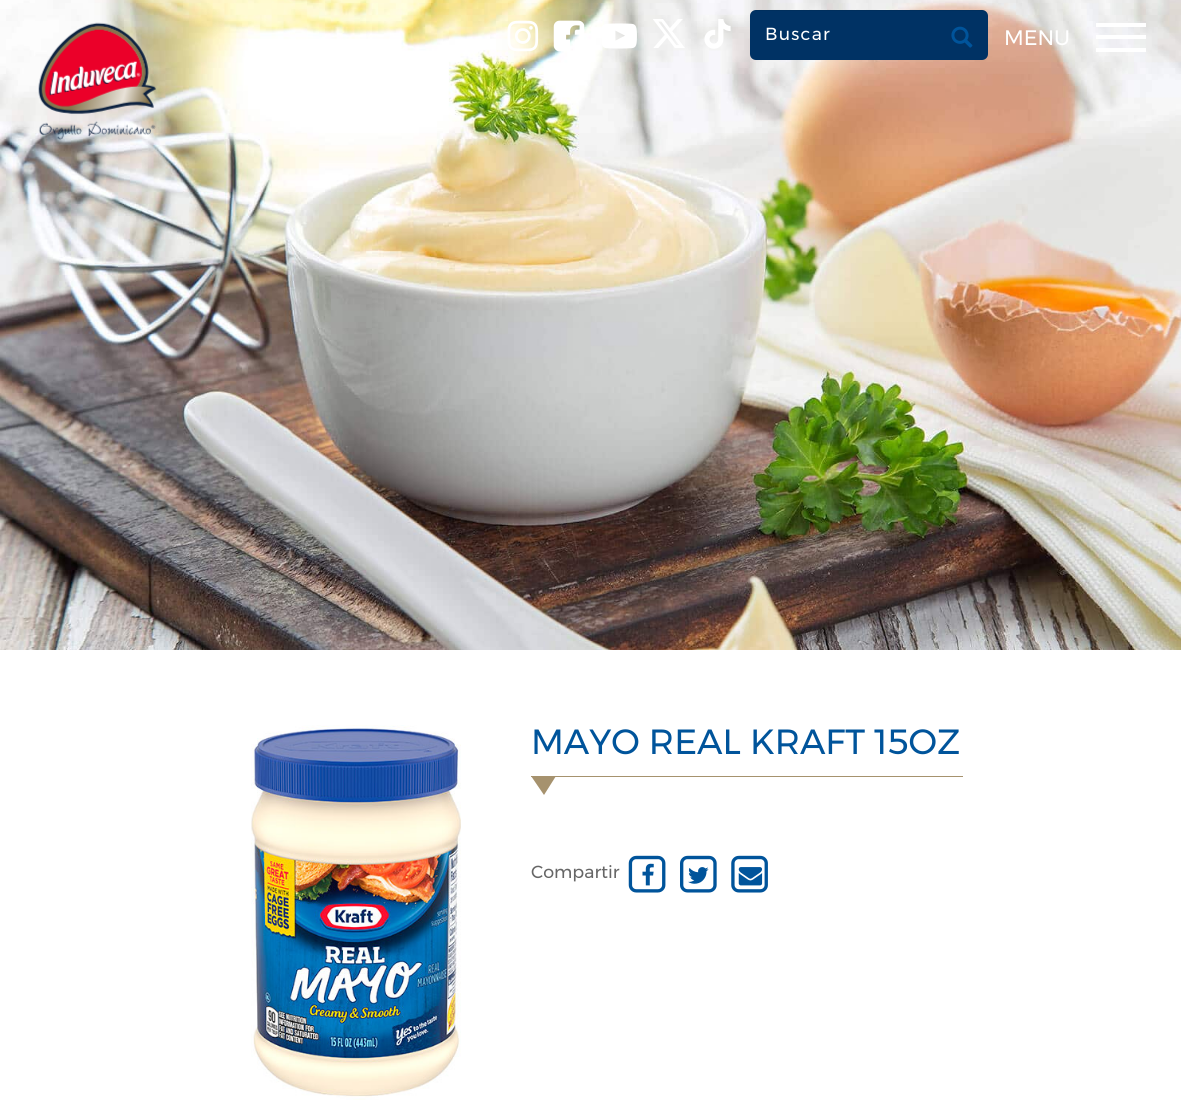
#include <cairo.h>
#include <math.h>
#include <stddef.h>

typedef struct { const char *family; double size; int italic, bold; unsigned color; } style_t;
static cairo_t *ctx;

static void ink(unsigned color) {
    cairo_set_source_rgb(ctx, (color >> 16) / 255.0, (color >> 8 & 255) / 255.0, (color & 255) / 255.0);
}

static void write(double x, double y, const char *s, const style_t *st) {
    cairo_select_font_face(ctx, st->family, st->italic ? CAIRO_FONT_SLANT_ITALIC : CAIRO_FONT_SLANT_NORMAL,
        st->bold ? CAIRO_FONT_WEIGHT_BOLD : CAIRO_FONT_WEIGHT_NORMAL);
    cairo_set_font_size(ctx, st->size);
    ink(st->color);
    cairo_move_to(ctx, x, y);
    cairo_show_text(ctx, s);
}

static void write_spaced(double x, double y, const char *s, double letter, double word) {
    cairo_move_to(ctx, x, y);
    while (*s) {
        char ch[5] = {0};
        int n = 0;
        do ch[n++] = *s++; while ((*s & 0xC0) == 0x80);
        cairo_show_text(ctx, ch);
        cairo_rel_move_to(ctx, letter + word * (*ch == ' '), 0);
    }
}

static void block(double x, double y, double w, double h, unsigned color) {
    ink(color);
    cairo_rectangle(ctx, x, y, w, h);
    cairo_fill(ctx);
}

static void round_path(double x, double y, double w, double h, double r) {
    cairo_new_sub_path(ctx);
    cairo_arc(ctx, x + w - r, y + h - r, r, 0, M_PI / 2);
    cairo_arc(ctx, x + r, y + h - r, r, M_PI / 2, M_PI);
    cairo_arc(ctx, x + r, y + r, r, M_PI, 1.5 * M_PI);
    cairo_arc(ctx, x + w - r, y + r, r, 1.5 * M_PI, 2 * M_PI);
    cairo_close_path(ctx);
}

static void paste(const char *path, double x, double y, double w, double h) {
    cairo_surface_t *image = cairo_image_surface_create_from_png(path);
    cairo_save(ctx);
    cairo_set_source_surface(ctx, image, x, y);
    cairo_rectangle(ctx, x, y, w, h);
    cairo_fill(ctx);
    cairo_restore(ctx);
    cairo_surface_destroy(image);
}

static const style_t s1 = {"Montserrat", 21, 0, 0, 0xffffff};
static const style_t s2 = {"Montserrat", 35, 0, 0, 0x00549b};
static const style_t s3 = {"Montserrat", 17.5, 0, 0, 0x666666};

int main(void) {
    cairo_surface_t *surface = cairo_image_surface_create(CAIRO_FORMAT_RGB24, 1181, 1105);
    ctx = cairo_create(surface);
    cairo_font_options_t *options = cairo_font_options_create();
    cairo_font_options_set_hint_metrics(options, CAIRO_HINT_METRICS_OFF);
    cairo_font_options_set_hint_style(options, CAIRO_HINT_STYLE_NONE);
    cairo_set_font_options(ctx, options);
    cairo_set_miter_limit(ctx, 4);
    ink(0xffffff);
    cairo_paint(ctx);
    paste("pic1.png", 0, 0, 1181, 650);
    paste("pic2.png", 38, 22, 118, 118);
    paste("pic3.png", 507, 20, 32, 32);
    paste("pic4.png", 553, 20, 32, 32);
    paste("pic5.png", 602, 23, 35, 26);
    paste("pic6.png", 653, 19, 32, 29);
    paste("pic7.png", 704, 19, 27, 30);
    ink(0x003264);
    round_path(750, 10, 238, 50, 6);
    cairo_fill(ctx);
    cairo_set_source_rgba(ctx, 0, 0, 0, 0.07);
    cairo_new_path(ctx);
    cairo_move_to(ctx, 756, 11);
    cairo_line_to(ctx, 981, 11);
    cairo_curve_to(ctx, 985, 11, 988, 14, 988, 18);
    cairo_line_to(ctx, 988, 16);
    cairo_curve_to(ctx, 988, 13, 985, 10, 982, 10);
    cairo_line_to(ctx, 756, 10);
    cairo_curve_to(ctx, 753, 10, 750, 13, 750, 16);
    cairo_line_to(ctx, 750, 18);
    cairo_curve_to(ctx, 750, 14, 753, 11, 756, 11);
    cairo_close_path(ctx);
    cairo_fill(ctx);
    cairo_select_font_face(ctx, "Montserrat", CAIRO_FONT_SLANT_NORMAL, CAIRO_FONT_WEIGHT_NORMAL);
    cairo_set_font_size(ctx, 17.5);
    ink(0xffffff);
    write_spaced(765, 40, "Buscar", 1.25, 0);
    paste("pic8.png", 951, 26, 22, 22);
    write(1004, 45, "MENU", &s1);
    block(1096, 35, 50, 4, 0xffffff);
    block(1096, 23, 50, 4, 0xffffff);
    block(1096, 48, 50, 4, 0xffffff);
    paste("pic9.png", 251, 725, 210, 375);
    write(531, 754, "MAYO REAL KRAFT 15OZ", &s2);
    block(531, 776, 432, 1, 0xa6926e);
    cairo_new_path(ctx);
    cairo_move_to(ctx, 531, 776);
    cairo_line_to(ctx, 556, 776);
    cairo_line_to(ctx, 544, 795);
    cairo_close_path(ctx);
    cairo_fill(ctx);
    write(531, 878, "Compartir", &s3);
    paste("pic10.png", 628, 855, 38, 38);
    paste("pic11.png", 642, 863, 12, 23);
    paste("pic12.png", 680, 855, 37, 38);
    paste("pic13.png", 688, 867, 21, 17);
    paste("pic14.png", 731, 855, 37, 38);
    paste("pic15.png", 738, 867, 25, 19);
    cairo_surface_write_to_png(surface, "screenshot.png");
    cairo_font_options_destroy(options);
    cairo_destroy(ctx);
    cairo_surface_destroy(surface);
    return 0;
}
